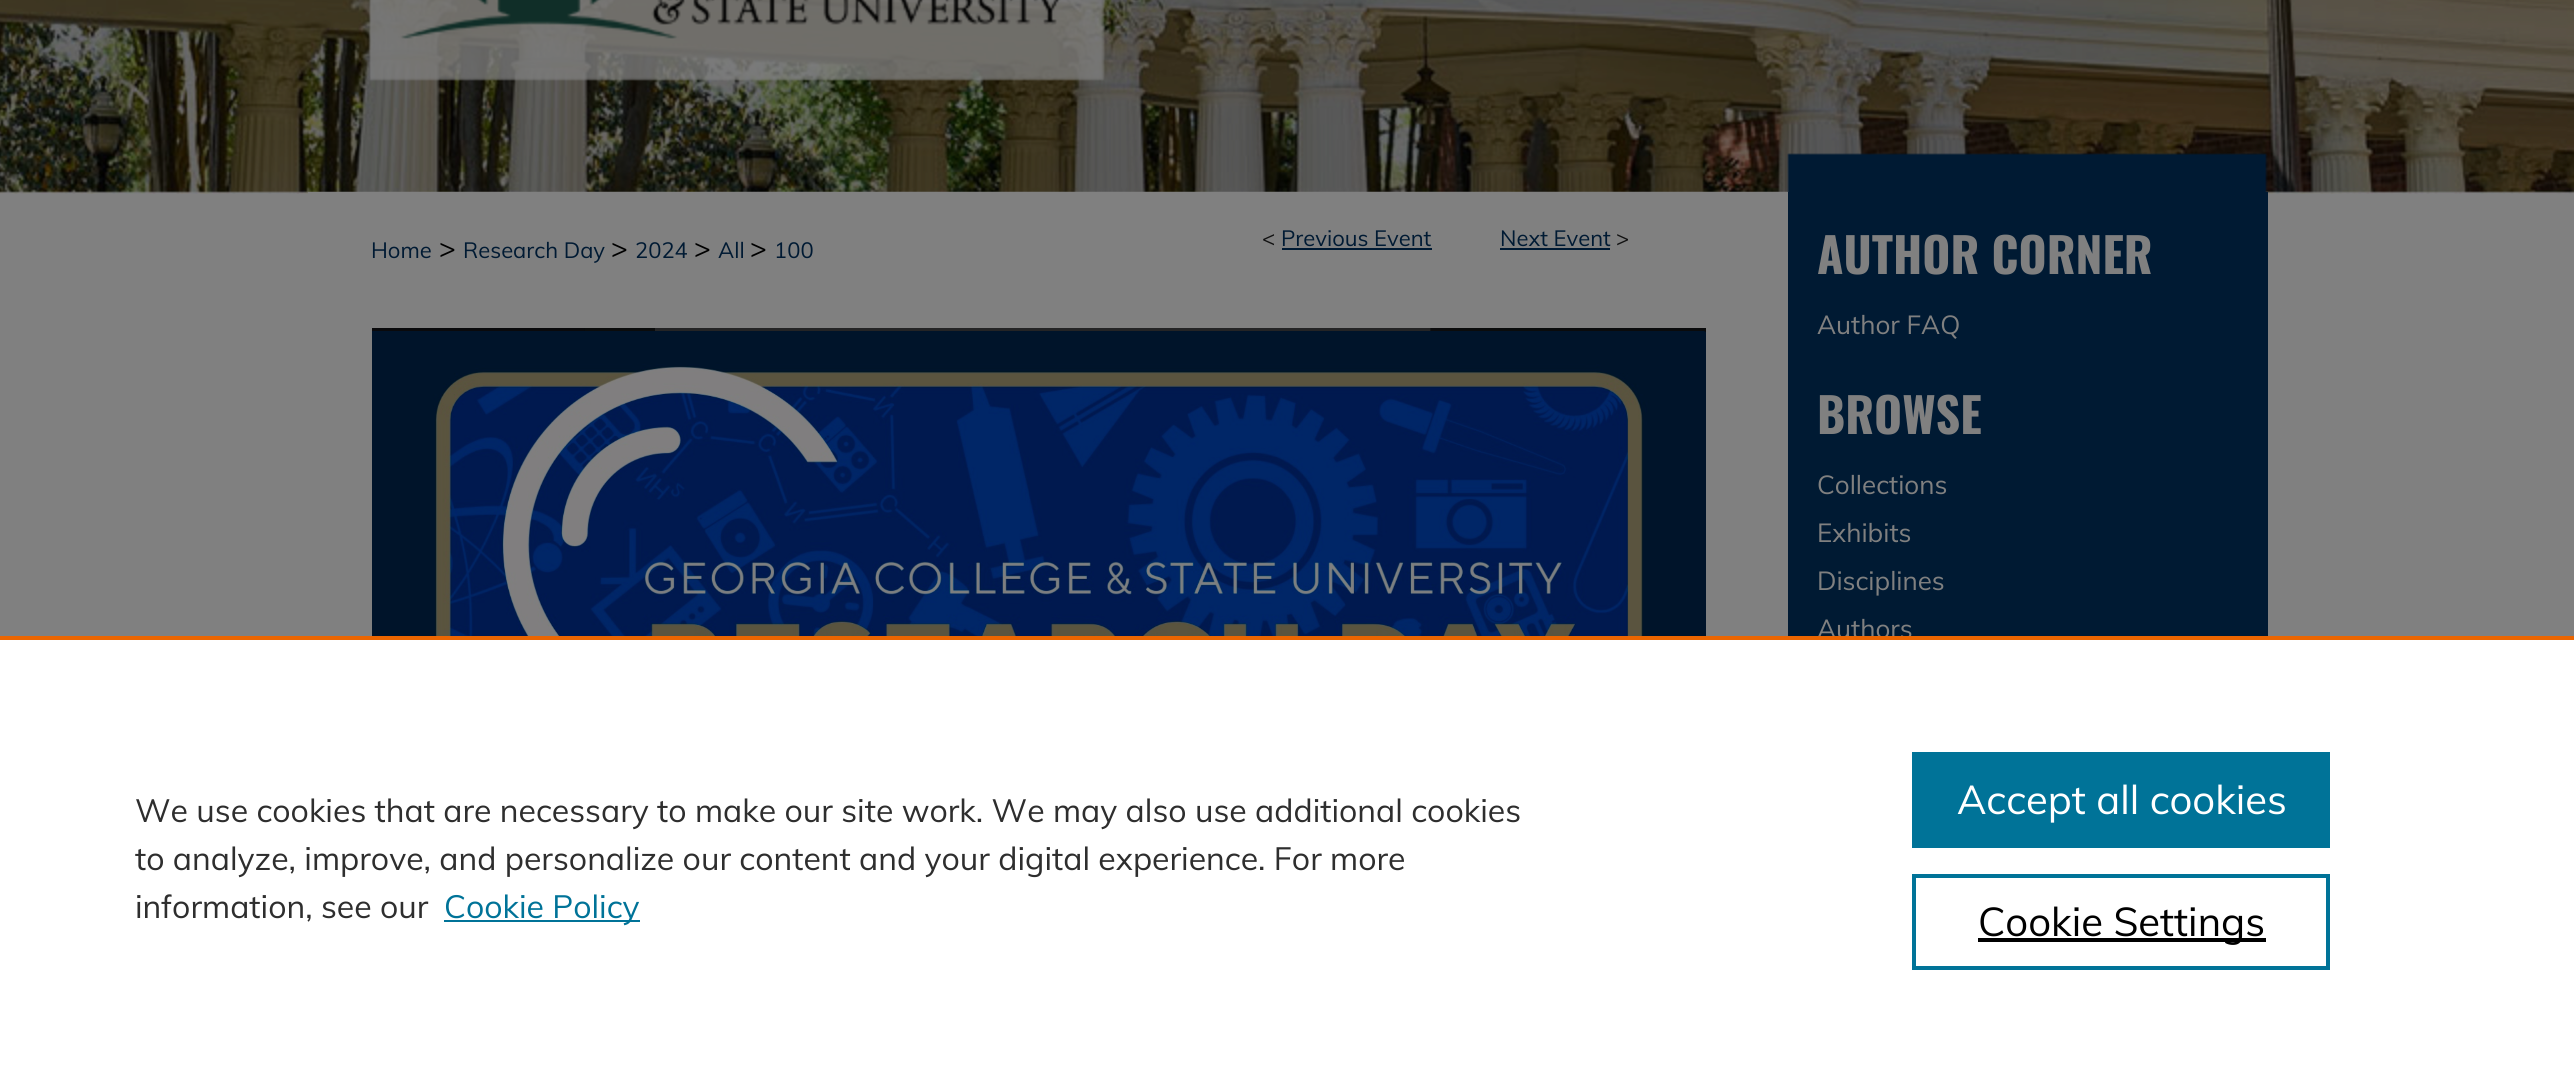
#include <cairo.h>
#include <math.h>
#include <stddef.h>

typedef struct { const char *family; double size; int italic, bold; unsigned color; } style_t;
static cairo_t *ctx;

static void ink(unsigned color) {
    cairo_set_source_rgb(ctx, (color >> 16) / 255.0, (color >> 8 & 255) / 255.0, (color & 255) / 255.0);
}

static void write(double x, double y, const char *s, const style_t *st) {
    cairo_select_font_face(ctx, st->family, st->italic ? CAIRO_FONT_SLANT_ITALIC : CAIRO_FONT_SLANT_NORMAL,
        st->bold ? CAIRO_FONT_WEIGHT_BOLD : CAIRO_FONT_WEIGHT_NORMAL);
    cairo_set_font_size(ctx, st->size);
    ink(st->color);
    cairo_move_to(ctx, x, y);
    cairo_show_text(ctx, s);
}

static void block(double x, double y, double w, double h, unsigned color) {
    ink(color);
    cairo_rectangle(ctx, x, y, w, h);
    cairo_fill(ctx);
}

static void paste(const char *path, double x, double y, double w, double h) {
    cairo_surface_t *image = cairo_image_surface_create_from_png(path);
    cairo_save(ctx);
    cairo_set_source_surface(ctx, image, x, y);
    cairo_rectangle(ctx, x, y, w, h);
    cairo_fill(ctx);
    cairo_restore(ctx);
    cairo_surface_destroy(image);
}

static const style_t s1 = {"Muli", 22, 0, 0, 0x111111};
static const style_t s2 = {"Muli", 22, 0, 0, 0x001a33};
static const style_t s3 = {"Muli", 28, 0, 0, 0x000000};
static const style_t s4 = {"Oswald", 48, 0, 1, 0x808080};
static const style_t s5 = {"Muli", 26, 0, 0, 0x808080};
static const style_t s6 = {"Muli", 32, 0, 0, 0x2e2e2e};
static const style_t s7 = {"Muli", 32, 0, 0, 0x007398};
static const style_t s8 = {"Muli", 40, 0, 0, 0xffffff};
static const style_t s9 = {"Muli", 40, 0, 0, 0x000000};

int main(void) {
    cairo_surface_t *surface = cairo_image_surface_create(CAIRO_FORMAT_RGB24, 2574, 1075);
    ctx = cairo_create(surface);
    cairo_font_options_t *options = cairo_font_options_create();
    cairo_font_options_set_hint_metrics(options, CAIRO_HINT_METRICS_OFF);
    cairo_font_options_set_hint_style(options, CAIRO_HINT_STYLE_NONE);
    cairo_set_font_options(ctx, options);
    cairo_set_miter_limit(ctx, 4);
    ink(0x808080);
    cairo_paint(ctx);
    paste("pic1.png", 0, 0, 2574, 194);
    paste("pic2.png", 369, 0, 736, 81);
    paste("pic3.png", 1787, 153, 481, 39);
    block(308, 192, 1480, 2, 0x808080);
    write(1262, 246, "<", &s1);
    write(1281, 246, "Previous Event", &s2);
    block(1282, 248, 150, 2, 0x001a33);
    write(1500, 246, "Next Event", &s2);
    block(1500, 248, 110, 2, 0x001a33);
    write(1616, 246, ">", &s1);
    write(371, 258, "Home", &s2);
    write(439, 258, ">", &s3);
    write(463, 258, "Research Day", &s2);
    write(611, 258, ">", &s3);
    write(635, 258, "2024", &s2);
    write(694, 258, ">", &s3);
    write(718, 258, "All", &s2);
    write(750, 258, ">", &s3);
    write(774, 258, "100", &s2);
    paste("pic4.png", 372, 328, 1334, 308);
    block(1788, 192, 480, 444, 0x001a33);
    write(1817, 274, "AUTHOR CORNER", &s4);
    write(1817, 334, "Author FAQ", &s5);
    write(1817, 434, "BROWSE", &s4);
    write(1817, 494, "Collections", &s5);
    write(1817, 542, "Exhibits", &s5);
    write(1817, 590, "Disciplines", &s5);
    write(1817, 638, "Authors", &s5);
    block(0, 640, 2574, 435, 0xffffff);
    block(0, 636, 2574, 4, 0xeb6500);
    write(135, 822, "We use cookies that are necessary to make our site work. We may also use additional cookies", &s6);
    write(135, 870, "to analyze, improve, and personalize our content and your digital experience. For more", &s6);
    write(135, 918, "information, see our", &s6);
    block(444, 920, 196, 2, 0x007398);
    write(444, 918, "Cookie Policy", &s7);
    block(1912, 752, 418, 96, 0x007398);
    write(1957, 814, "Accept all cookies", &s8);
    cairo_rectangle(ctx, 1914, 876, 414, 92);
    ink(0x007398);
    cairo_set_line_width(ctx, 4);
    cairo_stroke(ctx);
    block(1978, 938, 288, 4, 0x000000);
    write(1978, 936, "Cookie Settings", &s9);
    cairo_surface_write_to_png(surface, "screenshot.png");
    cairo_font_options_destroy(options);
    cairo_destroy(ctx);
    cairo_surface_destroy(surface);
    return 0;
}
